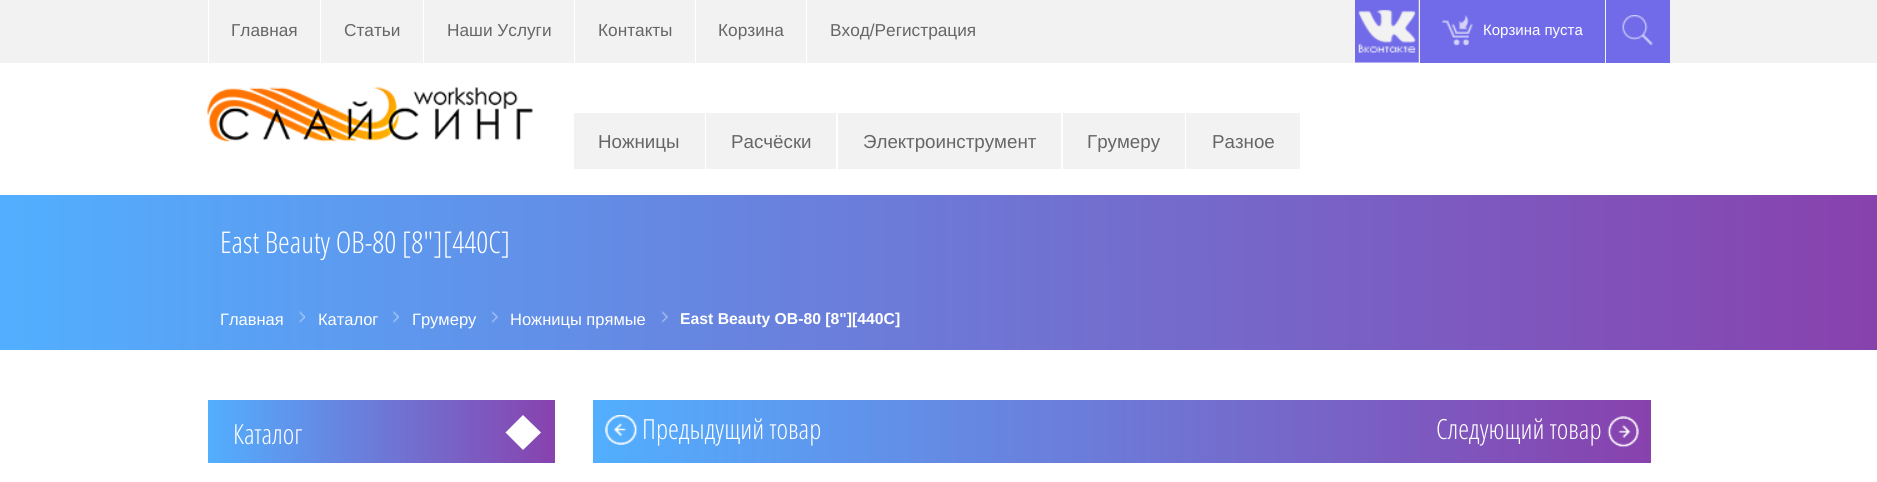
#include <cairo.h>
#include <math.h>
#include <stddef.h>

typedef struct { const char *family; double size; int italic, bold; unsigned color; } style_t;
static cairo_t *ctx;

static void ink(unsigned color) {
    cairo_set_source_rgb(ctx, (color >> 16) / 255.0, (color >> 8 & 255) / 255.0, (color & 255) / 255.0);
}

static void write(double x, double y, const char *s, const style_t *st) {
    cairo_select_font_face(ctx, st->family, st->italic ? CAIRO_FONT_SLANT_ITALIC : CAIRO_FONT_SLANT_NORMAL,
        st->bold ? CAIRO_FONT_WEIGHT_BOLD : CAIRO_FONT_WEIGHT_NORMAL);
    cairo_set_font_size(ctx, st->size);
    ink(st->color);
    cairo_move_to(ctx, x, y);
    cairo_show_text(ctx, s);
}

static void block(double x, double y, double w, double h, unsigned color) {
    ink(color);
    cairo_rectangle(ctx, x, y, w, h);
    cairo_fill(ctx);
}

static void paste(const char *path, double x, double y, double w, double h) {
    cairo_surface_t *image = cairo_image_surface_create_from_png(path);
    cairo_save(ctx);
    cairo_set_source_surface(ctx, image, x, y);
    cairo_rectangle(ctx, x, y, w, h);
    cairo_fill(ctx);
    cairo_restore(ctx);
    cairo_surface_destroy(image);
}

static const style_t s1 = {"Liberation Sans", 17.25, 0, 0, 0x666666};
static const style_t s2 = {"Liberation Sans", 15, 0, 0, 0xffffff};
static const style_t s3 = {"Liberation Sans", 18.75, 0, 0, 0x666666};
static const style_t s4 = {"Open Sans Condensed Light", 30, 0, 0, 0xffffff};
static const style_t s5 = {"Liberation Sans", 16.5, 0, 0, 0xffffff};
static const style_t s6 = {"Liberation Sans", 15.75, 0, 1, 0xffffff};
static const style_t s7 = {"Open Sans Condensed Light", 27.75, 0, 0, 0xffffff};

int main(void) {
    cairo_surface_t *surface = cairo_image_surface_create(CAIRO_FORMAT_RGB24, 1877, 482);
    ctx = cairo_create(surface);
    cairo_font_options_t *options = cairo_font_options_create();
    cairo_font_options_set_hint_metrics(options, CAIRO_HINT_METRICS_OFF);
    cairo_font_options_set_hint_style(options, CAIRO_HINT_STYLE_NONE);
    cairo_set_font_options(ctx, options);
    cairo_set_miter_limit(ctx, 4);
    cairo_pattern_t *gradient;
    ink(0xffffff);
    cairo_paint(ctx);
    block(0, 0, 1877, 63, 0xf2f2f2);
    block(208, 0, 1, 63, 0xffffff);
    write(231, 36, "Главная", &s1);
    block(320, 0, 1, 63, 0xffffff);
    write(344, 36, "Статьи", &s1);
    block(423, 0, 1, 63, 0xffffff);
    write(447, 36, "Наши Услуги", &s1);
    block(574, 0, 1, 63, 0xffffff);
    write(598, 36, "Контакты", &s1);
    block(695, 0, 1, 63, 0xffffff);
    write(718, 36, "Корзина", &s1);
    block(806, 0, 1, 63, 0xffffff);
    write(830, 36, "Вход/Регистрация", &s1);
    paste("pic1.png", 1355, 0, 64, 63);
    block(1420, 0, 185, 63, 0x716bea);
    paste("pic2.png", 1442, 15, 31, 31);
    write(1483, 35, "Корзина пуста", &s2);
    block(1606, 0, 64, 63, 0x716bea);
    paste("pic3.png", 1622, 15, 31, 31);
    paste("pic4.png", 207, 87, 326, 55);
    block(574, 113, 131, 56, 0xf2f2f2);
    write(598, 148, "Ножницы", &s3);
    block(706, 113, 130, 56, 0xf2f2f2);
    write(731, 148, "Расчёски", &s3);
    block(838, 113, 223, 56, 0xf2f2f2);
    write(863, 148, "Электроинструмент", &s3);
    block(1063, 113, 122, 56, 0xf2f2f2);
    write(1087, 148, "Грумеру", &s3);
    block(1186, 113, 114, 56, 0xf2f2f2);
    write(1212, 148, "Разное", &s3);
    gradient = cairo_pattern_create_linear(0, 273, 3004, 272);
    cairo_pattern_add_color_stop_rgba(gradient, 0, 0.322, 0.686, 1, 1);
    cairo_pattern_add_color_stop_rgba(gradient, 1, 0.663, 0, 0.49, 1);
    cairo_set_source(ctx, gradient);
    cairo_pattern_destroy(gradient);
    cairo_rectangle(ctx, 0, 195, 1877, 155);
    cairo_fill(ctx);
    write(220, 253, "East Beauty OB-80 [8\"][440С]", &s4);
    write(220, 325, "Главная", &s5);
    paste("pic5.png", 298, 311, 7, 12);
    write(318, 325, "Каталог", &s5);
    paste("pic6.png", 392, 311, 7, 12);
    write(412, 325, "Грумеру", &s5);
    paste("pic7.png", 491, 311, 7, 12);
    write(510, 325, "Ножницы прямые", &s5);
    paste("pic8.png", 661, 311, 7, 12);
    write(680, 324, "East Beauty OB-80 [8\"][440С]", &s6);
    gradient = cairo_pattern_create_linear(208, 431, 764, 431);
    cairo_pattern_add_color_stop_rgba(gradient, 0, 0.322, 0.686, 1, 1);
    cairo_pattern_add_color_stop_rgba(gradient, 1, 0.663, 0, 0.49, 1);
    cairo_set_source(ctx, gradient);
    cairo_pattern_destroy(gradient);
    cairo_rectangle(ctx, 208, 400, 347, 63);
    cairo_fill(ctx);
    write(233, 444, "Каталог", &s7);
    cairo_new_path(ctx);
    cairo_move_to(ctx, 523, 415);
    cairo_line_to(ctx, 541, 432.5);
    cairo_line_to(ctx, 523, 450);
    cairo_line_to(ctx, 505.5, 432.5);
    cairo_close_path(ctx);
    cairo_fill(ctx);
    gradient = cairo_pattern_create_linear(593, 431, 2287, 431);
    cairo_pattern_add_color_stop_rgba(gradient, 0, 0.322, 0.686, 1, 1);
    cairo_pattern_add_color_stop_rgba(gradient, 1, 0.663, 0, 0.49, 1);
    cairo_set_source(ctx, gradient);
    cairo_pattern_destroy(gradient);
    cairo_rectangle(ctx, 593, 400, 1058, 63);
    cairo_fill(ctx);
    paste("pic9.png", 605, 415, 33, 30);
    write(642, 439, "Предыдущий товар", &s7);
    paste("pic10.png", 1607, 416, 32, 32);
    write(1436, 439, "Cледующий товар", &s7);
    cairo_surface_write_to_png(surface, "screenshot.png");
    cairo_font_options_destroy(options);
    cairo_destroy(ctx);
    cairo_surface_destroy(surface);
    return 0;
}
